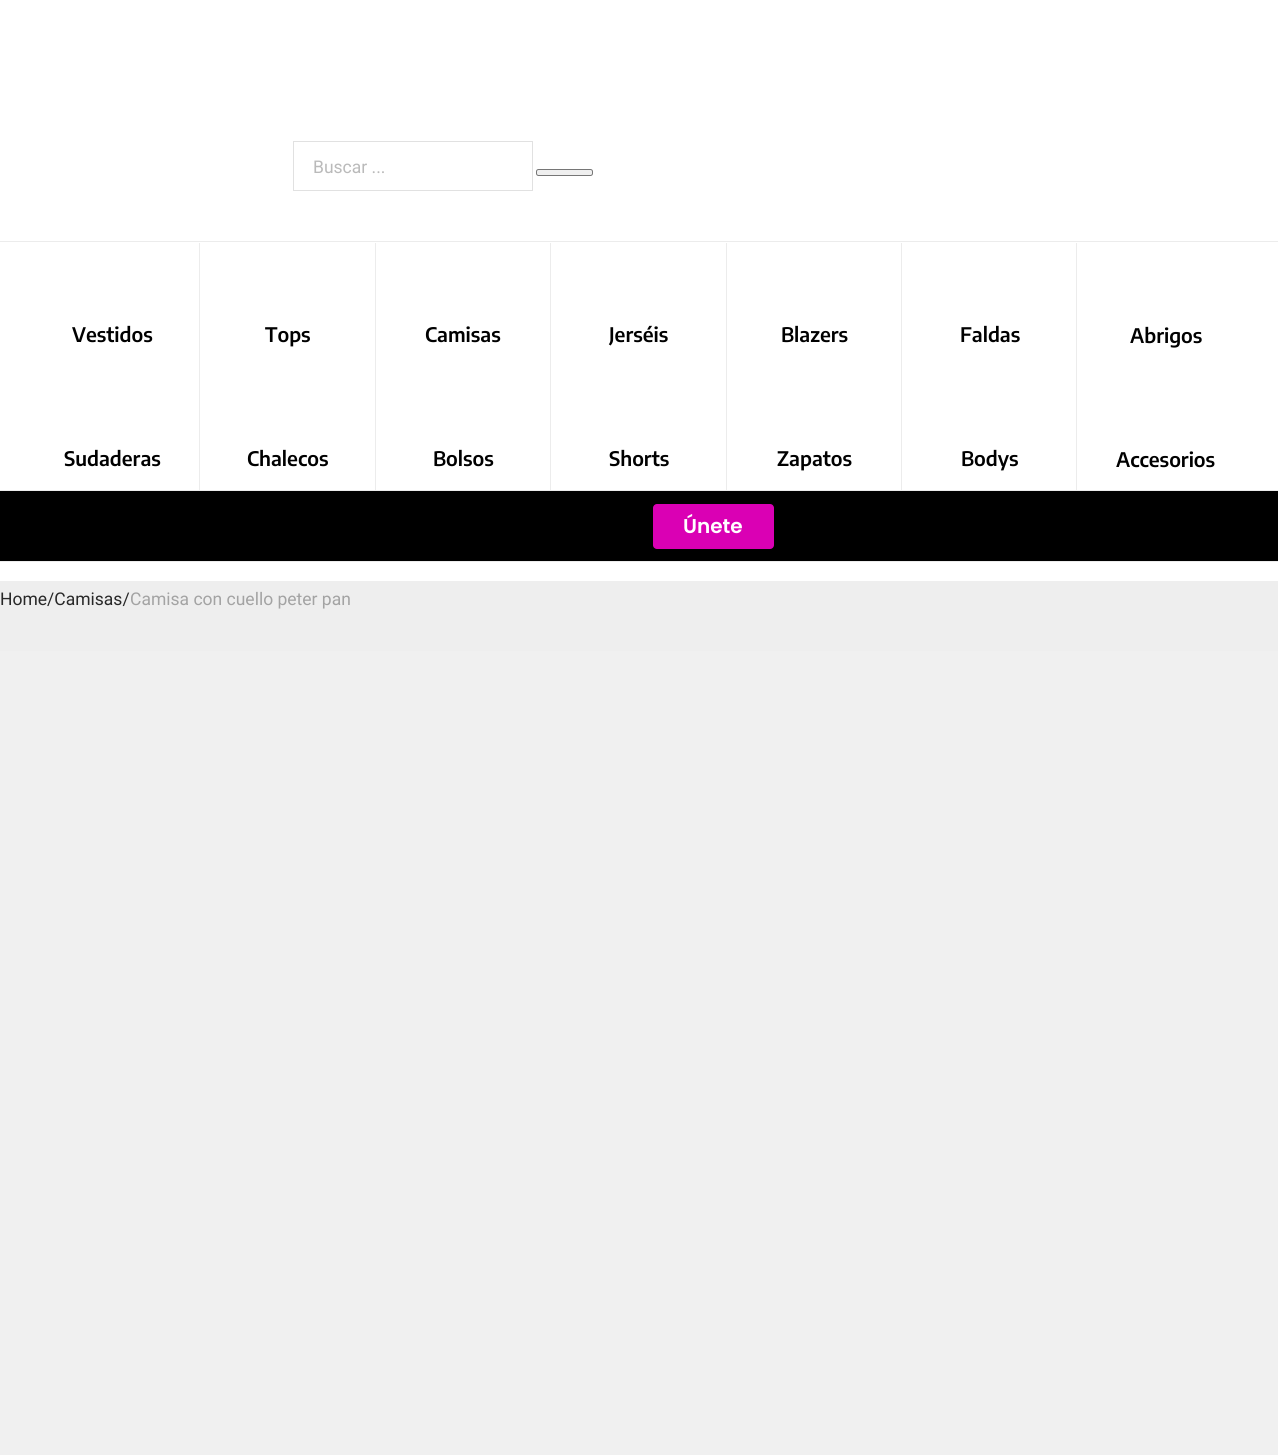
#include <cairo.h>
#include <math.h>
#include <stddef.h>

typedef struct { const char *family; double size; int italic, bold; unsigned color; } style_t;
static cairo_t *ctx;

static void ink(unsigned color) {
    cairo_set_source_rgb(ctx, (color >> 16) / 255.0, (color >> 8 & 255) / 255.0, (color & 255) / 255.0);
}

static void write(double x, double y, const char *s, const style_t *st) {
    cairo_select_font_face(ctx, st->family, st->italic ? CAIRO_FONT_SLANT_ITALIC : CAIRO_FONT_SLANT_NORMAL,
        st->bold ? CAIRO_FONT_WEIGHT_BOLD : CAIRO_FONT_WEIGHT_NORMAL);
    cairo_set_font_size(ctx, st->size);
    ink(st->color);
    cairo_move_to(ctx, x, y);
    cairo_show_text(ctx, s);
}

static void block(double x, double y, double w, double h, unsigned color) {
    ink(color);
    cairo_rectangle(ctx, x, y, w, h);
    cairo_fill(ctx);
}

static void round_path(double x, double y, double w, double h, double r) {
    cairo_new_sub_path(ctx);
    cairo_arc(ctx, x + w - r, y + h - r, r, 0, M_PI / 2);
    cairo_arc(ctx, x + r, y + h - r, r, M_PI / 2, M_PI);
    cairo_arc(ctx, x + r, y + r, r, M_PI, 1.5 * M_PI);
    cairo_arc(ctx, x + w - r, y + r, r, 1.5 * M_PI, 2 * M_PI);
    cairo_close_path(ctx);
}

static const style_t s1 = {"Roboto", 17.5, 0, 0, 0xbababa};
static const style_t s2 = {"Encode Sans Condensed SemiBold", 20, 0, 0, 0x000000};
static const style_t s3 = {"Poppins SemiBold", 20, 0, 0, 0xffffff};
static const style_t s4 = {"Roboto", 17.5, 0, 0, 0x282828};
static const style_t s5 = {"Roboto", 17.5, 0, 0, 0xa3a3a3};

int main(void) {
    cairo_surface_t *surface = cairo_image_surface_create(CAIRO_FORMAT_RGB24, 1278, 1455);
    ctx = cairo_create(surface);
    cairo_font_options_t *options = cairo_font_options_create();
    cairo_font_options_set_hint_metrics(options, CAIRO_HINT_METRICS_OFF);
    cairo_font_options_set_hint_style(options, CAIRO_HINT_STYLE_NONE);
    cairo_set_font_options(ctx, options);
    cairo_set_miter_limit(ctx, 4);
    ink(0xffffff);
    cairo_paint(ctx);
    block(0, 241, 1278, 1, 0xececec);
    cairo_rectangle(ctx, 293.5, 141.5, 239, 49);
    ink(0xe1e1e1);
    cairo_set_line_width(ctx, 1);
    cairo_stroke(ctx);
    write(313, 173, "Buscar ...", &s1);
    ink(0xefefef);
    round_path(536.5, 169.5, 56, 6, 2);
    cairo_fill_preserve(ctx);
    ink(0x767676);
    cairo_stroke(ctx);
    block(199, 243, 1, 247, 0xececec);
    write(72, 342, "Vestidos", &s2);
    block(375, 243, 1, 247, 0xececec);
    write(265, 342, "Tops", &s2);
    block(550, 243, 1, 247, 0xececec);
    write(425, 342, "Camisas", &s2);
    block(726, 243, 1, 247, 0xececec);
    write(609, 342, "Jerséis", &s2);
    block(901, 243, 1, 247, 0xececec);
    write(781, 342, "Blazers", &s2);
    block(1076, 243, 1, 247, 0xececec);
    write(960, 342, "Faldas", &s2);
    write(1130, 343, "Abrigos", &s2);
    write(64, 466, "Sudaderas", &s2);
    write(247, 466, "Chalecos", &s2);
    write(433, 466, "Bolsos", &s2);
    write(609, 466, "Shorts", &s2);
    write(777, 466, "Zapatos", &s2);
    write(961, 466, "Bodys", &s2);
    write(1116, 467, "Accesorios", &s2);
    block(0, 490, 1278, 1, 0xececec);
    block(0, 561, 1278, 1, 0xececec);
    block(0, 491, 1278, 70, 0x000000);
    ink(0xda00b4);
    round_path(653, 504, 121, 45, 4);
    cairo_fill(ctx);
    write(683, 533, "Únete", &s3);
    block(0, 581, 1278, 70, 0xeeeeee);
    write(0, 605, "Home/Camisas/", &s4);
    write(130, 605, "Camisa con cuello peter pan", &s5);
    block(0, 651, 1278, 804, 0xf0f0f0);
    cairo_surface_write_to_png(surface, "screenshot.png");
    cairo_font_options_destroy(options);
    cairo_destroy(ctx);
    cairo_surface_destroy(surface);
    return 0;
}
